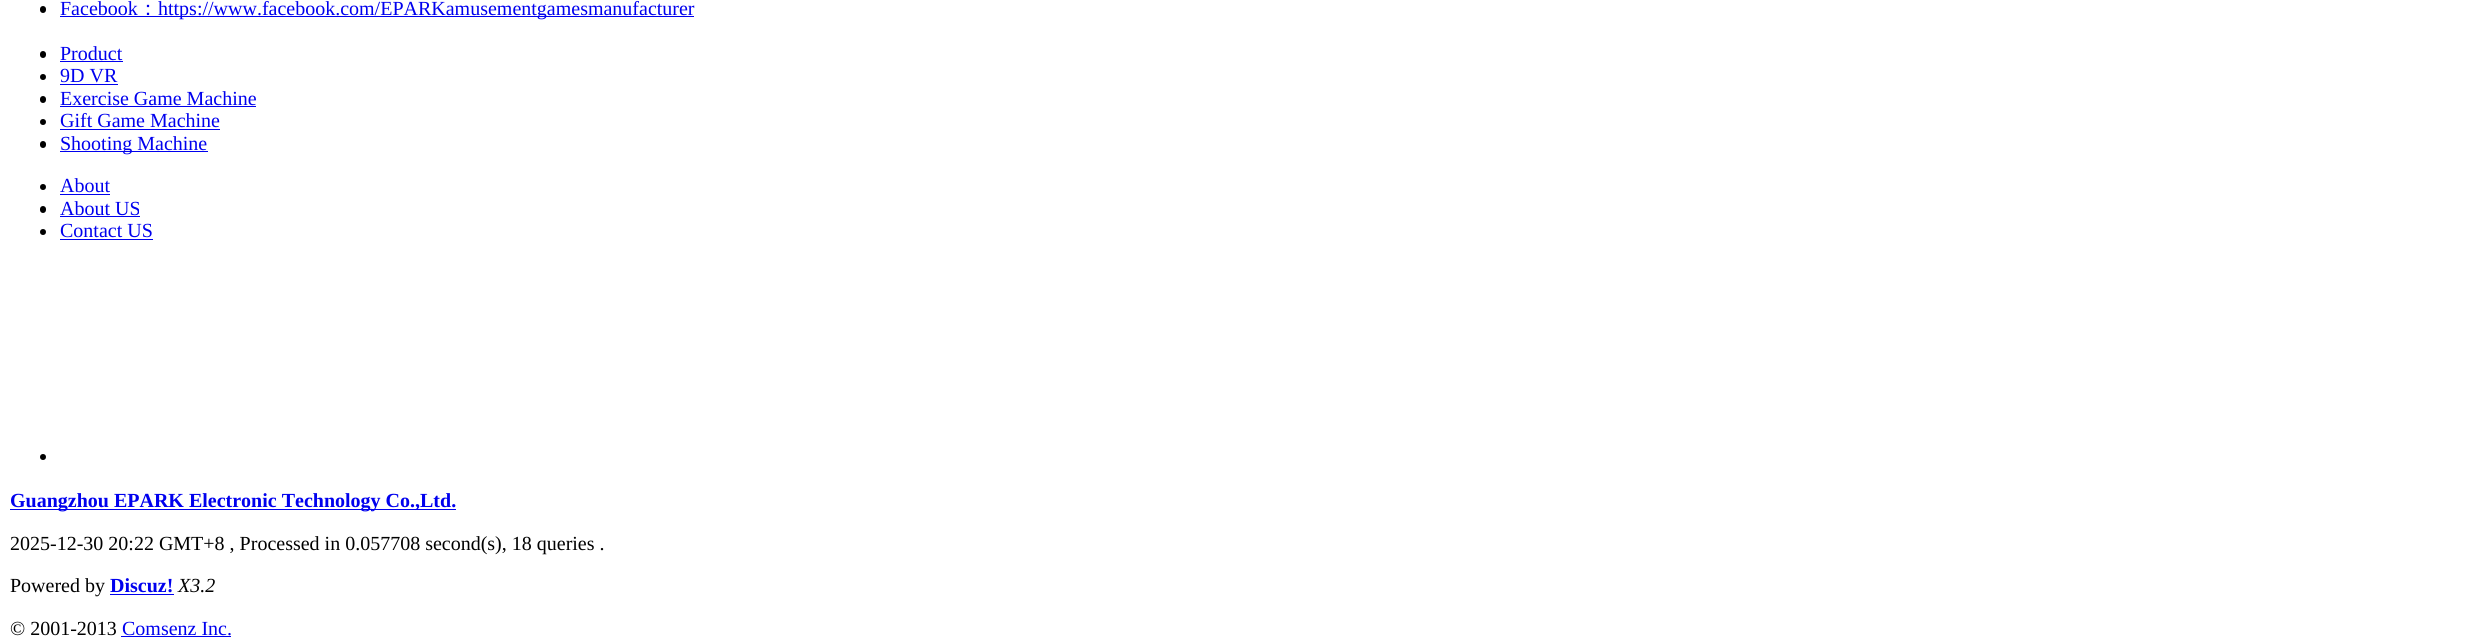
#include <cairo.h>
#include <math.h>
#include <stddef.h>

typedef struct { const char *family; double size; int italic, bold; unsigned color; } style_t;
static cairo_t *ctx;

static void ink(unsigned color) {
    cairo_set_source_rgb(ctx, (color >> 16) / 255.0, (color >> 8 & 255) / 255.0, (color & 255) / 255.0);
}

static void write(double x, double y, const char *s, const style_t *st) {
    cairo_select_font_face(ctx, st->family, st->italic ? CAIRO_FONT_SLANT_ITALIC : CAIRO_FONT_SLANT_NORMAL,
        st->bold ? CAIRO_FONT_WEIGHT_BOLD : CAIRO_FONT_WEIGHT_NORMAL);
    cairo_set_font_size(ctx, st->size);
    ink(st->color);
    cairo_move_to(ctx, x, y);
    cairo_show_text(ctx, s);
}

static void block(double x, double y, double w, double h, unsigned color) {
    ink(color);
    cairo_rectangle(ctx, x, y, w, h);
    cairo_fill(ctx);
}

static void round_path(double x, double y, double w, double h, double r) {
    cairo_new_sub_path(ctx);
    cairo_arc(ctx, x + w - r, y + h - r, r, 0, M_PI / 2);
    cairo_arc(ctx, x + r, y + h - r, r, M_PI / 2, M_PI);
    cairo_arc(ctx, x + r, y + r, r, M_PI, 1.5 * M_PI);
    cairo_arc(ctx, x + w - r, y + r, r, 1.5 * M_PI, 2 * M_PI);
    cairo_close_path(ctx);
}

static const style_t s1 = {"Liberation Serif", 20, 0, 0, 0x0000ee};
static const style_t s2 = {"WenQuanYi Zen Hei Medium", 20, 0, 0, 0x0000ee};
static const style_t s3 = {"Liberation Serif", 20, 0, 1, 0x0000ee};
static const style_t s4 = {"Liberation Serif", 20, 0, 0, 0x000000};
static const style_t s5 = {"Liberation Serif", 20, 1, 0, 0x000000};

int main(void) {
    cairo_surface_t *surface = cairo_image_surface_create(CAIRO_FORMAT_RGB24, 2470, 639);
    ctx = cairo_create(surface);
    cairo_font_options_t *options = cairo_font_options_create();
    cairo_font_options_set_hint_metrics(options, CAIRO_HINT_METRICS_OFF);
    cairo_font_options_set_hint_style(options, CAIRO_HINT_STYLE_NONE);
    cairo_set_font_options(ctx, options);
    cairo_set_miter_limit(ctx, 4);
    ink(0xffffff);
    cairo_paint(ctx);
    ink(0x000000);
    round_path(40, 6, 6, 7, 3);
    cairo_fill(ctx);
    write(60, 15, "Facebook", &s1);
    write(138, 15, "：", &s2);
    block(60, 16, 634, 1, 0x0000ee);
    write(158, 15, "https://www.facebook.com/EPARKamusementgamesmanufacturer", &s1);
    ink(0x000000);
    round_path(40, 51, 6, 7, 3);
    cairo_fill(ctx);
    write(60, 60, "Product", &s1);
    block(60, 61, 63, 1, 0x0000ee);
    ink(0x000000);
    cairo_new_path(ctx);
    cairo_arc(ctx, 43, 77, 3, 0, 2 * M_PI);
    cairo_fill(ctx);
    write(60, 82, "9D VR", &s1);
    block(60, 84, 58, 1, 0x0000ee);
    ink(0x000000);
    round_path(40, 96, 6, 7, 3);
    cairo_fill(ctx);
    write(60, 105, "Exercise Game Machine", &s1);
    block(60, 106, 196, 1, 0x0000ee);
    ink(0x000000);
    cairo_new_path(ctx);
    cairo_arc(ctx, 43, 122, 3, 0, 2 * M_PI);
    cairo_fill(ctx);
    write(60, 127, "Gift Game Machine", &s1);
    block(60, 129, 160, 1, 0x0000ee);
    ink(0x000000);
    round_path(40, 141, 6, 7, 3);
    cairo_fill(ctx);
    block(60, 151, 148, 1, 0x0000ee);
    write(60, 150, "Shooting Machine", &s1);
    ink(0x000000);
    cairo_new_path(ctx);
    cairo_arc(ctx, 43, 187, 3, 0, 2 * M_PI);
    cairo_fill(ctx);
    write(60, 192, "About", &s1);
    block(60, 194, 50, 1, 0x0000ee);
    ink(0x000000);
    round_path(40, 206, 6, 7, 3);
    cairo_fill(ctx);
    write(60, 215, "About US", &s1);
    block(60, 216, 80, 1, 0x0000ee);
    ink(0x000000);
    cairo_new_path(ctx);
    cairo_arc(ctx, 43, 232, 3, 0, 2 * M_PI);
    cairo_fill(ctx);
    write(60, 237, "Contact US", &s1);
    block(60, 239, 93, 1, 0x0000ee);
    ink(0x000000);
    cairo_new_path(ctx);
    cairo_arc(ctx, 43, 457, 3, 0, 2 * M_PI);
    cairo_fill(ctx);
    block(10, 509, 446, 1, 0x0000ee);
    write(10, 507, "Guangzhou EPARK Electronic Technology Co.,Ltd.", &s3);
    write(10, 550, "2025-12-30 20:22 GMT+8 , Processed in 0.057708 second(s), 18 queries .", &s4);
    write(10, 592, "Powered by", &s4);
    write(110, 592, "Discuz!", &s3);
    block(110, 594, 64, 1, 0x0000ee);
    write(178, 592, "X3.2", &s5);
    write(10, 635, "© 2001-2013", &s4);
    write(122, 635, "Comsenz Inc.", &s1);
    block(121, 636, 110, 1, 0x0000ee);
    cairo_surface_write_to_png(surface, "screenshot.png");
    cairo_font_options_destroy(options);
    cairo_destroy(ctx);
    cairo_surface_destroy(surface);
    return 0;
}
